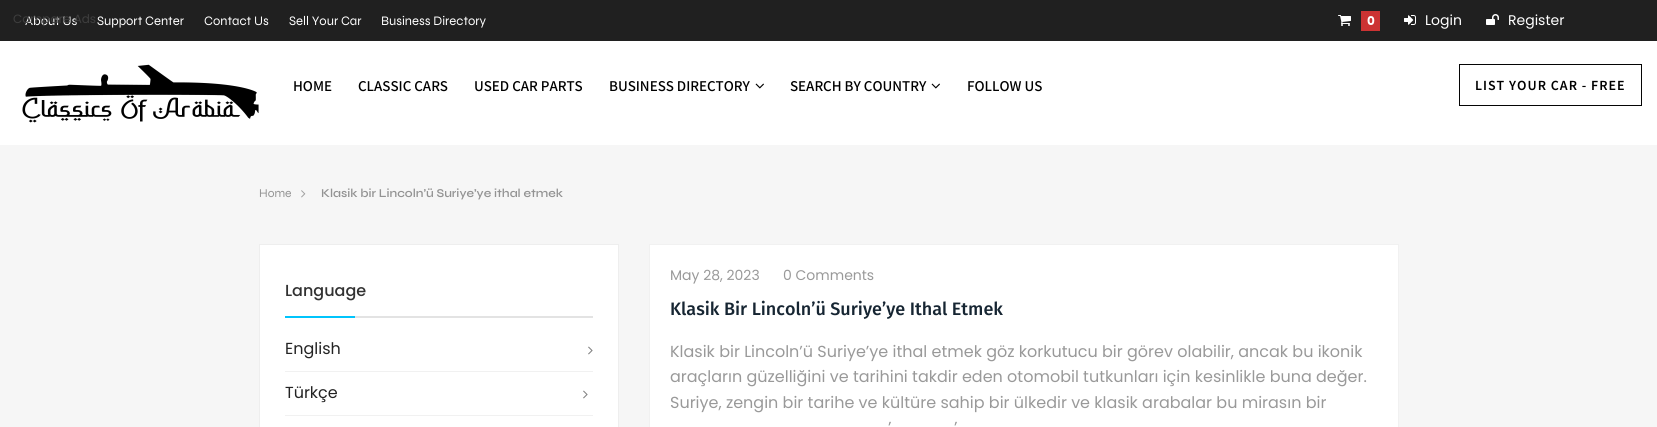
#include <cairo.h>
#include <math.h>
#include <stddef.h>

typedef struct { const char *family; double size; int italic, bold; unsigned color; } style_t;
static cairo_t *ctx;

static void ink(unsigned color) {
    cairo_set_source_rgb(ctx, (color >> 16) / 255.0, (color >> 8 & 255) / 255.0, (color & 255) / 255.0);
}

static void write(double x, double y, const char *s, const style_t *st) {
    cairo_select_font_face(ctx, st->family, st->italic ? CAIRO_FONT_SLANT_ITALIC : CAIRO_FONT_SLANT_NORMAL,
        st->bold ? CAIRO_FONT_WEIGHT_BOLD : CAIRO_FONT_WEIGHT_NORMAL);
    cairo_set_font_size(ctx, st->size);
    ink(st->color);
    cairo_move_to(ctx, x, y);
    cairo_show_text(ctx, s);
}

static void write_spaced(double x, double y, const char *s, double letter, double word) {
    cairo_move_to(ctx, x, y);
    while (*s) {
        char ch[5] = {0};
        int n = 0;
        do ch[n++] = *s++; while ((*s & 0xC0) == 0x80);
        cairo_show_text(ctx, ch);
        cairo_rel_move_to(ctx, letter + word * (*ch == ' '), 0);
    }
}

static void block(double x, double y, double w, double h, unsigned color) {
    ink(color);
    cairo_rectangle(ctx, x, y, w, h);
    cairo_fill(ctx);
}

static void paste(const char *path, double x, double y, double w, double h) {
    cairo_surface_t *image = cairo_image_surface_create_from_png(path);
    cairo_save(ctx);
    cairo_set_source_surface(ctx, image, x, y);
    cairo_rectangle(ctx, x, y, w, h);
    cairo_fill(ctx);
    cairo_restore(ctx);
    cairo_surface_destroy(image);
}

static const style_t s1 = {"Syne", 13, 0, 0, 0xffffff};
static const style_t s2 = {"Poppins", 12, 0, 0, 0x3e3e3e};
static const style_t s3 = {"Poppins", 12, 0, 1, 0xffffff};
static const style_t s4 = {"Poppins", 14, 0, 0, 0xffffff};
static const style_t s5 = {"Assistant SemiBold", 15, 0, 0, 0x000000};
static const style_t s6 = {"Syne", 12, 0, 0, 0x939393};
static const style_t s7 = {"Syne SemiBold", 12, 0, 0, 0x939393};
static const style_t s8 = {"Poppins Medium", 16, 0, 0, 0x323232};
static const style_t s9 = {"Poppins", 16, 0, 0, 0x232323};
static const style_t s10 = {"Poppins", 14, 0, 0, 0x999999};
static const style_t s11 = {"Fira Sans Medium", 18, 0, 0, 0x162532};
static const style_t s12 = {"Poppins", 16, 0, 0, 0x999999};

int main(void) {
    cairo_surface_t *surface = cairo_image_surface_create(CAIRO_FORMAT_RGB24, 1657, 427);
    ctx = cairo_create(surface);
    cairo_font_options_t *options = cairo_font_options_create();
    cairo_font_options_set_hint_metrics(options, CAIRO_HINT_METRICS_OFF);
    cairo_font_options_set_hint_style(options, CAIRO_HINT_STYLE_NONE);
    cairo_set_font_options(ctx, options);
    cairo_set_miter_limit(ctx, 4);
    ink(0xffffff);
    cairo_paint(ctx);
    block(0, 0, 1657, 41, 0x202020);
    write(25, 25, "About Us", &s1);
    write(13, 23, "Compare Ads", &s2);
    write(97, 25, "Support Center", &s1);
    write(204, 25, "Contact Us", &s1);
    write(289, 25, "Sell Your Car", &s1);
    write(381, 25, "Business Directory", &s1);
    paste("pic1.png", 1338, 15, 13, 11);
    block(1361, 11, 19, 20, 0xcc3333);
    write(1367, 25, "0", &s3);
    paste("pic2.png", 1404, 15, 12, 10);
    write(1425, 25, "Login", &s4);
    paste("pic3.png", 1486, 14, 13, 11);
    write(1508, 25, "Register", &s4);
    paste("pic4.png", 22, 64, 237, 59);
    write(293, 91, "HOME", &s5);
    write(358, 91, "CLASSIC CARS", &s5);
    write(474, 91, "USED CAR PARTS", &s5);
    write(609, 91, "BUSINESS DIRECTORY", &s5);
    paste("pic5.png", 755, 83, 9, 6);
    write(790, 91, "SEARCH BY COUNTRY", &s5);
    paste("pic5.png", 931, 83, 9, 6);
    write(967, 91, "FOLLOW US", &s5);
    cairo_rectangle(ctx, 1459.5, 64.5, 182, 41);
    ink(0x050505);
    cairo_set_line_width(ctx, 1);
    cairo_stroke(ctx);
    cairo_select_font_face(ctx, "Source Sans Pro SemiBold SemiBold", CAIRO_FONT_SLANT_NORMAL, CAIRO_FONT_WEIGHT_NORMAL);
    cairo_set_font_size(ctx, 14);
    ink(0x000000);
    write_spaced(1475, 90, "LIST YOUR CAR - FREE", 1, 0);
    block(0, 145, 1657, 282, 0xf6f6f6);
    write(259, 197, "Home", &s6);
    paste("pic6.png", 301, 190, 5, 8);
    write(321, 197, "Klasik bir Lincoln’ü Suriye’ye ithal etmek", &s7);
    ink(0xffffff);
    cairo_rectangle(ctx, 259.5, 244.5, 359, 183);
    cairo_fill_preserve(ctx);
    ink(0xeeeeee);
    cairo_stroke(ctx);
    block(355, 316, 238, 2, 0xe3e3e3);
    write(285, 296, "Language", &s8);
    block(285, 316, 70, 2, 0x00c4fc);
    block(285, 371, 308, 1, 0xf1f1f1);
    write(285, 354, "English", &s9);
    paste("pic7.png", 588, 346, 5, 9);
    block(285, 415, 308, 1, 0xf1f1f1);
    write(285, 398, "Türkçe", &s9);
    paste("pic7.png", 583, 390, 5, 9);
    ink(0xffffff);
    cairo_rectangle(ctx, 649.5, 244.5, 749, 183);
    cairo_fill_preserve(ctx);
    ink(0xf1f1f1);
    cairo_stroke(ctx);
    write(670, 280, "May 28, 2023", &s10);
    write(783, 280, "0 Comments", &s10);
    write(670, 315, "Klasik Bir Lincoln’ü Suriye’ye Ithal Etmek", &s11);
    write(670, 357, "Klasik bir Lincoln’ü Suriye’ye ithal etmek göz korkutucu bir görev olabilir, ancak bu ikonik", &s12);
    write(670, 382, "araçların güzelliğini ve tarihini takdir eden otomobil tutkunları için kesinlikle buna değer.", &s12);
    write(670, 408, "Suriye, zengin bir tarihe ve kültüre sahip bir ülkedir ve klasik arabalar bu mirasın bir", &s12);
    write(888, 433, "’", &s12);
    write(954, 433, "’", &s12);
    cairo_surface_write_to_png(surface, "screenshot.png");
    cairo_font_options_destroy(options);
    cairo_destroy(ctx);
    cairo_surface_destroy(surface);
    return 0;
}
